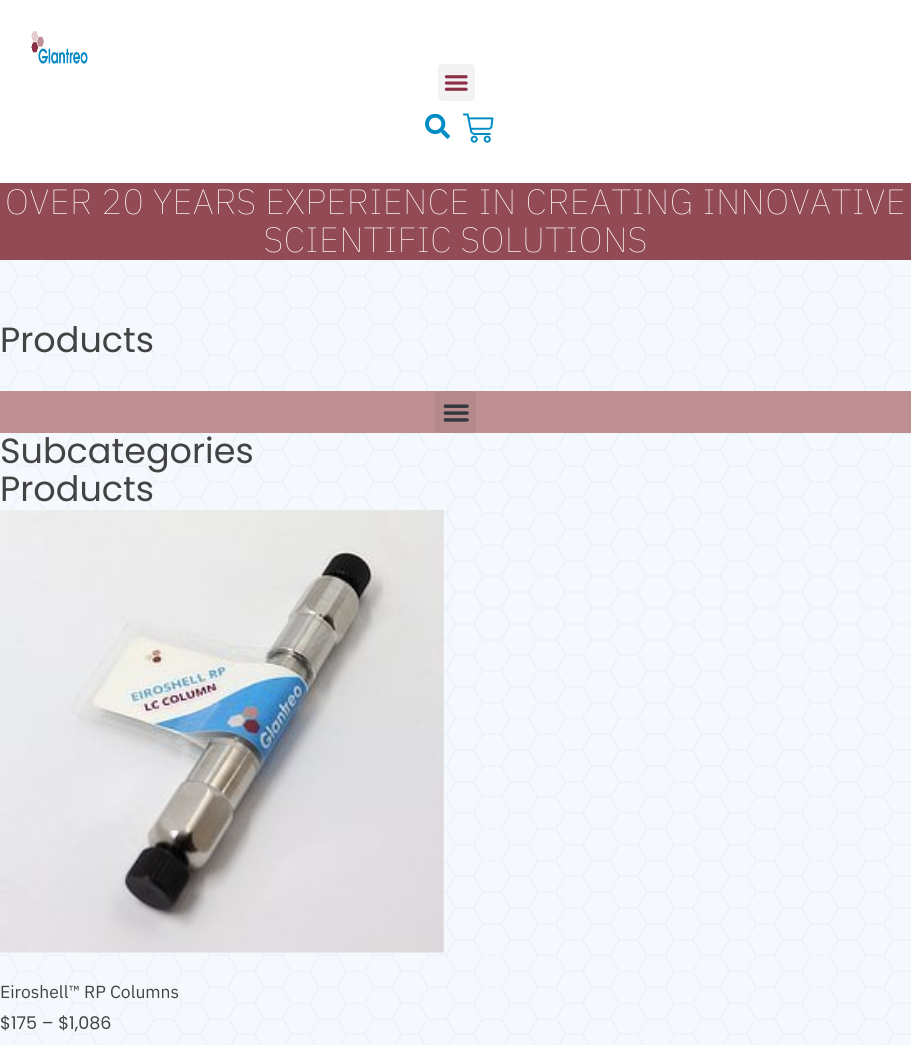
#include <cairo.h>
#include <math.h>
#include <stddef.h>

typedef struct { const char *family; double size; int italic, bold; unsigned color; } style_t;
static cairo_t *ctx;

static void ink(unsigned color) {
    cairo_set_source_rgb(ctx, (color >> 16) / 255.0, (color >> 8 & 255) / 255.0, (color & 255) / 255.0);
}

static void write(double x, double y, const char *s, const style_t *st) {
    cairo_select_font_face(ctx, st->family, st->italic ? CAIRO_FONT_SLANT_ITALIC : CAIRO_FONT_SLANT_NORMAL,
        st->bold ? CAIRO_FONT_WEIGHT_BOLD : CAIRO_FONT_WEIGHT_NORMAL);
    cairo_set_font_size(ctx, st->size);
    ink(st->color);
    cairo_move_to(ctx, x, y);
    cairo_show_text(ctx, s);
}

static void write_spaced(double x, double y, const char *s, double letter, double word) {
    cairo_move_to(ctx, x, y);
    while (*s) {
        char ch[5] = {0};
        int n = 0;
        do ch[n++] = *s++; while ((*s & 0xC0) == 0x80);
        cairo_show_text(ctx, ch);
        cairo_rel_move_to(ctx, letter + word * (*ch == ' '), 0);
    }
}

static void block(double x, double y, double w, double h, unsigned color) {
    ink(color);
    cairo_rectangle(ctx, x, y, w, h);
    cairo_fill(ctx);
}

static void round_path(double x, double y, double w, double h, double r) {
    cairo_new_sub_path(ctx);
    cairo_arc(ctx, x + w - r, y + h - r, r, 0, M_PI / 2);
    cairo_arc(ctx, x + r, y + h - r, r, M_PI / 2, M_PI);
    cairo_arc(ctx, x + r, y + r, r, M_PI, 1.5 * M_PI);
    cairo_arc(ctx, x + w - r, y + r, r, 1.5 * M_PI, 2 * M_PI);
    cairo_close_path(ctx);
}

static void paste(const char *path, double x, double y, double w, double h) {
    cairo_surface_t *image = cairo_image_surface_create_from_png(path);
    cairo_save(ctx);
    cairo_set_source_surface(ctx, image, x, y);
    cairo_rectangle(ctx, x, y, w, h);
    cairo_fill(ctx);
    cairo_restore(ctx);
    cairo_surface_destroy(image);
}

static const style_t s1 = {"Poppins", 35, 0, 0, 0x434343};
static const style_t s2 = {"IBM Plex Sans", 17.5, 0, 0, 0x434343};
static const style_t s3 = {"Poppins", 17.5, 0, 0, 0x434343};

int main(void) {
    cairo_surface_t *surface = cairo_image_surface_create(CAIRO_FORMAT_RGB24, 911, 1045);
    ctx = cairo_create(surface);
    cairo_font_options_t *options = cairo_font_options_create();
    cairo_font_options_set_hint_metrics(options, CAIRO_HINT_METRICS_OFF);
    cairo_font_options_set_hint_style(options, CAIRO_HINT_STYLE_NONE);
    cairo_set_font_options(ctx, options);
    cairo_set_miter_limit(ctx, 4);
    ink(0xffffff);
    cairo_paint(ctx);
    paste("pic1.png", 0, 260, 911, 785);
    paste("pic2.png", 31, 31, 57, 33);
    ink(0xf2f2f2);
    round_path(438, 64, 37, 37, 4);
    cairo_fill(ctx);
    paste("pic3.png", 444, 75, 24, 16);
    paste("pic4.png", 425, 114, 25, 25);
    paste("pic5.png", 463, 113, 31, 30);
    block(0, 183, 911, 77, 0x924a55);
    cairo_select_font_face(ctx, "IBM Plex Sans Thin", CAIRO_FONT_SLANT_NORMAL, CAIRO_FONT_WEIGHT_NORMAL);
    cairo_set_font_size(ctx, 35);
    ink(0xffffff);
    write_spaced(5, 214, "OVER 20 YEARS EXPERIENCE IN CREATING INNOVATIVE", 0.5, 0);
    write_spaced(264, 252, "SCIENTIFIC SOLUTIONS", 0.5, 0);
    write(0, 352, "Products", &s1);
    block(0, 391, 911, 42, 0xbe9093);
    ink(0xb5898c);
    round_path(435, 391, 41, 42, 4);
    cairo_fill(ctx);
    paste("pic6.png", 443, 404, 26, 18);
    write(0, 463, "Subcategories", &s1);
    write(0, 501, "Products", &s1);
    paste("pic7.png", 0, 510, 444, 443);
    write(0, 998, "Eiroshell™ RP Columns", &s2);
    write(0, 1029, "$175 – $1,086", &s3);
    cairo_surface_write_to_png(surface, "screenshot.png");
    cairo_font_options_destroy(options);
    cairo_destroy(ctx);
    cairo_surface_destroy(surface);
    return 0;
}
